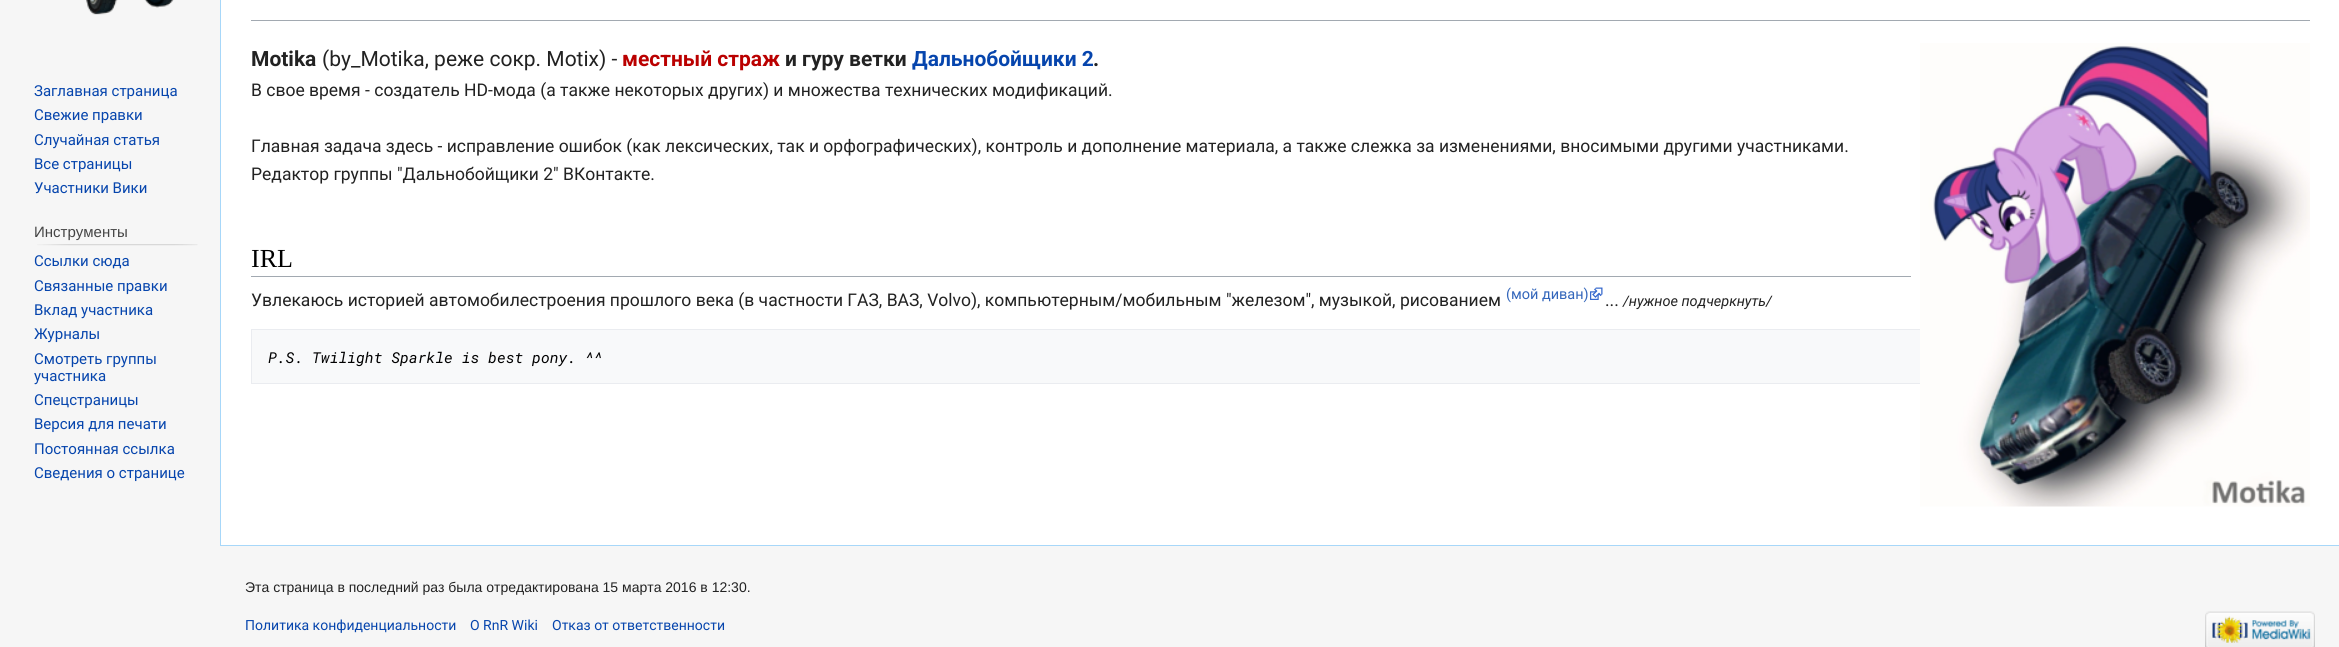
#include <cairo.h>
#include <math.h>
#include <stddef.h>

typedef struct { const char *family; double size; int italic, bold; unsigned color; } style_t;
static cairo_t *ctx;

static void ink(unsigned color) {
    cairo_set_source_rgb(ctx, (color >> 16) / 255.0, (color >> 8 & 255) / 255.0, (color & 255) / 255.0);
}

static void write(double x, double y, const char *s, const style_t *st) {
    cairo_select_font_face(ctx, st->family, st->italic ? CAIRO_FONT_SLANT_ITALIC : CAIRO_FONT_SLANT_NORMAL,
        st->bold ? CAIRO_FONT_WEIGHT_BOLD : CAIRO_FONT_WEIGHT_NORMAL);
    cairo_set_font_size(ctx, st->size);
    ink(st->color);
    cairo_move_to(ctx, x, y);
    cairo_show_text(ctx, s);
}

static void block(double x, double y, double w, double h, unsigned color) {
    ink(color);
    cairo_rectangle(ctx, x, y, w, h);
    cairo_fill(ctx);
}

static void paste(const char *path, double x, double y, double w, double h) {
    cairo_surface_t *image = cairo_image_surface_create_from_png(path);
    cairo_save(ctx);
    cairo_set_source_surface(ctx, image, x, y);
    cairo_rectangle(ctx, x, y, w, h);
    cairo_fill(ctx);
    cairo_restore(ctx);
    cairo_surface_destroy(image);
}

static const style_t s1 = {"Roboto", 15, 0, 0, 0x0645ad};
static const style_t s2 = {"Liberation Sans", 15, 0, 0, 0x444444};
static const style_t s3 = {"Roboto", 21, 0, 1, 0x222222};
static const style_t s4 = {"Roboto", 21, 0, 0, 0x222222};
static const style_t s5 = {"Roboto", 21, 0, 1, 0xba0000};
static const style_t s6 = {"Roboto", 21, 0, 1, 0x0645ad};
static const style_t s7 = {"Roboto", 17.5, 0, 0, 0x222222};
static const style_t s8 = {"Liberation Serif", 26, 0, 0, 0x000000};
static const style_t s9 = {"Roboto", 14.5, 0, 0, 0x3366bb};
static const style_t s10 = {"Roboto", 14.5, 1, 0, 0x222222};
static const style_t s11 = {"Roboto Mono", 15, 1, 0, 0x000000};
static const style_t s12 = {"Liberation Sans", 14, 0, 0, 0x222222};
static const style_t s13 = {"Roboto", 14, 0, 0, 0x0645ad};

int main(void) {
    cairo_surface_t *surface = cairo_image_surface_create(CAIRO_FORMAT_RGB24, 2339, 647);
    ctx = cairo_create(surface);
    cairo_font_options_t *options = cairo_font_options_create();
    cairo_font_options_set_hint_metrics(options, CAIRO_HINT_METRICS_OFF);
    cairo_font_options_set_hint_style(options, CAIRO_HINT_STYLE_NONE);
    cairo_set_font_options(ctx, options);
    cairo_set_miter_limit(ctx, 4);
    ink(0xf6f6f6);
    cairo_paint(ctx);
    paste("pic1.png", 86, 0, 88, 15);
    write(34, 96, "Заглавная страница", &s1);
    write(34, 120, "Свежие правки", &s1);
    write(34, 145, "Случайная статья", &s1);
    write(34, 169, "Все страницы", &s1);
    write(34, 193, "Участники Вики", &s1);
    write(34, 237, "Инструменты", &s2);
    paste("pic2.png", 37, 244, 161, 2);
    write(34, 266, "Ссылки сюда", &s1);
    write(34, 291, "Связанные правки", &s1);
    write(34, 315, "Вклад участника", &s1);
    write(34, 339, "Журналы", &s1);
    write(34, 364, "Смотреть группы", &s1);
    write(34, 381, "участника", &s1);
    write(34, 405, "Спецстраницы", &s1);
    write(34, 429, "Версия для печати", &s1);
    write(34, 454, "Постоянная ссылка", &s1);
    write(34, 478, "Сведения о странице", &s1);
    block(221, 0, 2118, 545, 0xffffff);
    block(220, 545, 2119, 1, 0xa7d7f9);
    block(220, 0, 1, 546, 0xa7d7f9);
    block(251, 20, 2059, 1, 0xa2a9b1);
    write(251, 66, "Motika", &s3);
    write(322, 66, "(by_Motika, реже сокр. Motix) -", &s4);
    write(622, 66, "местный страж", &s5);
    write(785, 66, "и гуру ветки", &s3);
    write(912, 66, "Дальнобойщики 2", &s6);
    write(1093, 66, ".", &s3);
    write(251, 96, "В свое время - создатель HD-мода (а также некоторых других) и множества технических модификаций.", &s7);
    write(251, 152, "Главная задача здесь - исправление ошибок (как лексических, так и орфографических), контроль и дополнение материала, а также слежка за изменениями, вносимыми другими участниками.", &s7);
    write(251, 180, "Редактор группы \"Дальнобойщики 2\" ВКонтакте.", &s7);
    block(252, 330, 1668, 53, 0xf8f9fa);
    cairo_rectangle(ctx, 251.5, 329.5, 2058, 54);
    ink(0xeaecf0);
    cairo_set_line_width(ctx, 1);
    cairo_stroke(ctx);
    paste("pic3.png", 1920, 43, 390, 464);
    block(251, 276, 1660, 1, 0xa2a9b1);
    write(251, 267, "IRL", &s8);
    write(251, 306, "Увлекаюсь историей автомобилестроения прошлого века (в частности ГАЗ, ВАЗ, Volvo), компьютерным/мобильным \"железом\", музыкой, рисованием", &s7);
    write(1506, 299, "(мой диван)", &s9);
    paste("pic4.png", 1590, 287, 13, 13);
    write(1605, 306, "...", &s7);
    write(1623, 306, "/нужное подчеркнуть/", &s10);
    write(268, 363, "P.S. Twilight Sparkle is best pony. ^^", &s11);
    write(245, 592, "Эта страница в последний раз была отредактирована 15 марта 2016 в 12:30.", &s12);
    write(245, 630, "Политика конфиденциальности", &s13);
    write(470, 630, "О RnR Wiki", &s13);
    write(552, 630, "Отказ от ответственности", &s13);
    paste("pic5.png", 2205, 611, 110, 36);
    cairo_surface_write_to_png(surface, "screenshot.png");
    cairo_font_options_destroy(options);
    cairo_destroy(ctx);
    cairo_surface_destroy(surface);
    return 0;
}
